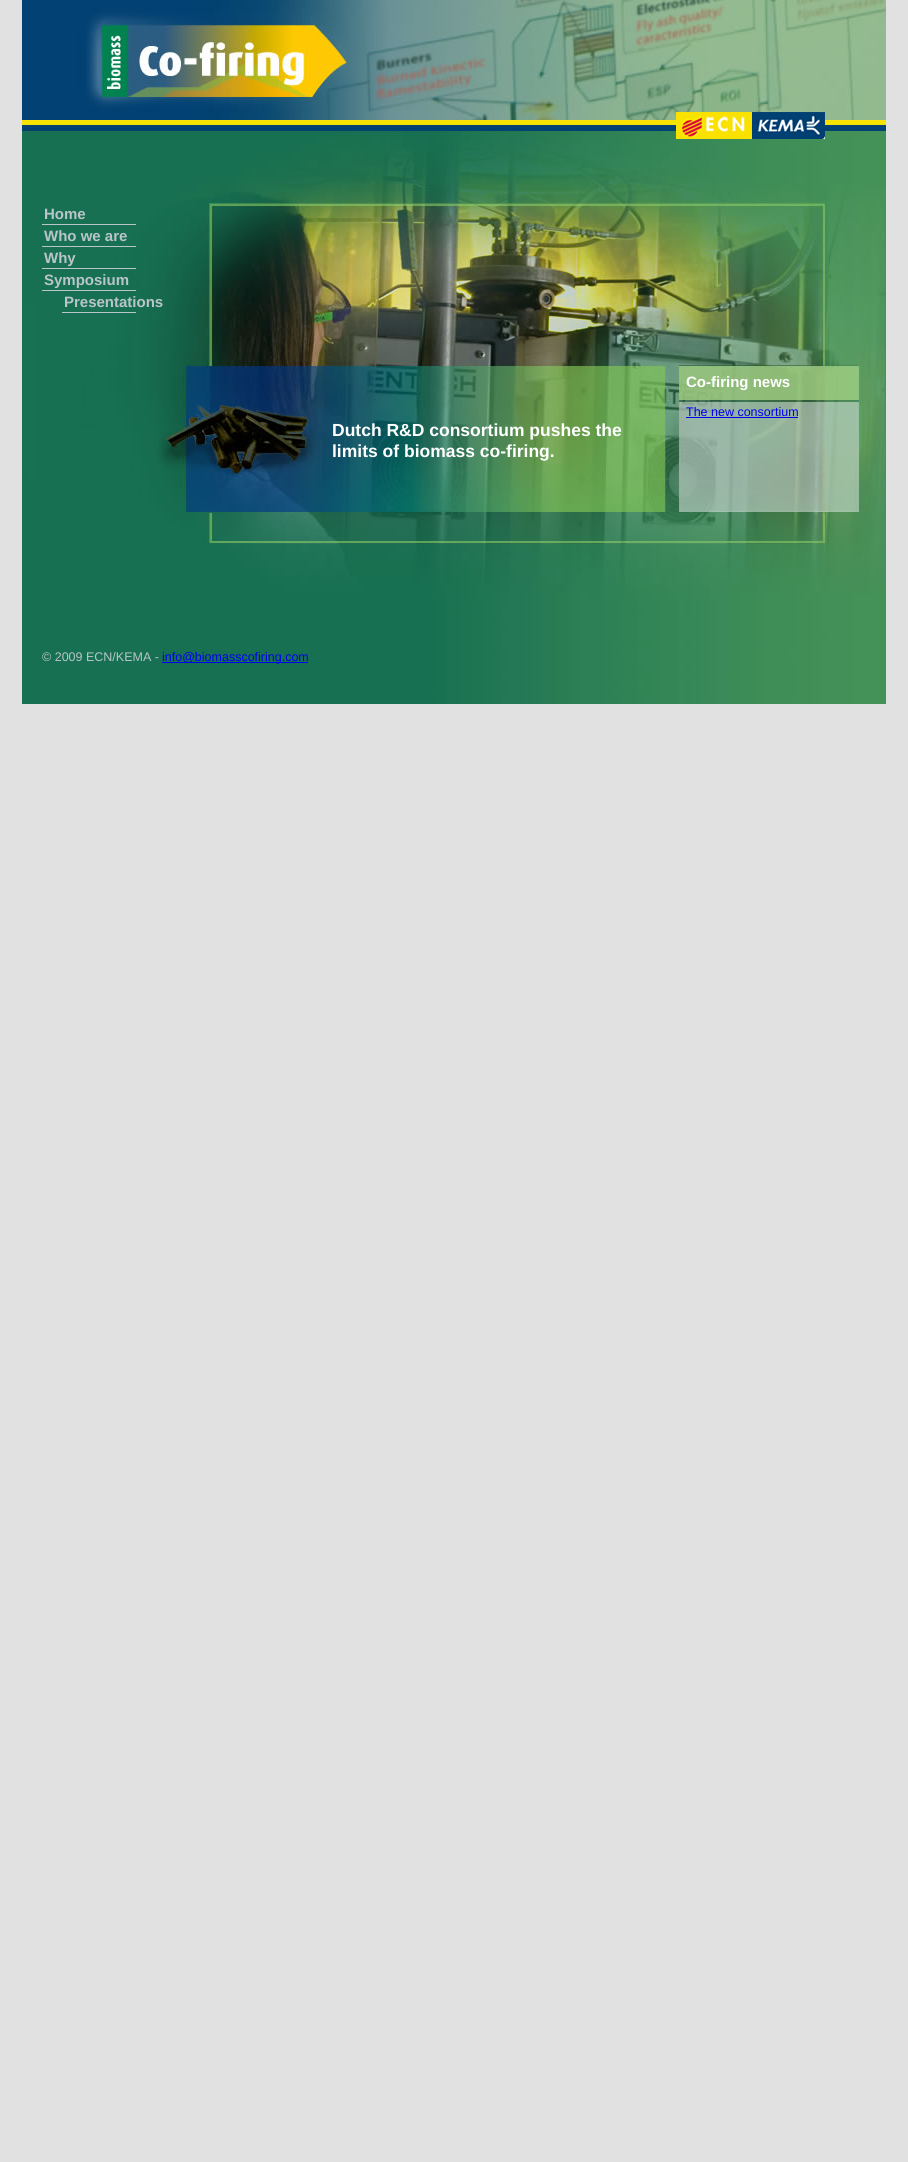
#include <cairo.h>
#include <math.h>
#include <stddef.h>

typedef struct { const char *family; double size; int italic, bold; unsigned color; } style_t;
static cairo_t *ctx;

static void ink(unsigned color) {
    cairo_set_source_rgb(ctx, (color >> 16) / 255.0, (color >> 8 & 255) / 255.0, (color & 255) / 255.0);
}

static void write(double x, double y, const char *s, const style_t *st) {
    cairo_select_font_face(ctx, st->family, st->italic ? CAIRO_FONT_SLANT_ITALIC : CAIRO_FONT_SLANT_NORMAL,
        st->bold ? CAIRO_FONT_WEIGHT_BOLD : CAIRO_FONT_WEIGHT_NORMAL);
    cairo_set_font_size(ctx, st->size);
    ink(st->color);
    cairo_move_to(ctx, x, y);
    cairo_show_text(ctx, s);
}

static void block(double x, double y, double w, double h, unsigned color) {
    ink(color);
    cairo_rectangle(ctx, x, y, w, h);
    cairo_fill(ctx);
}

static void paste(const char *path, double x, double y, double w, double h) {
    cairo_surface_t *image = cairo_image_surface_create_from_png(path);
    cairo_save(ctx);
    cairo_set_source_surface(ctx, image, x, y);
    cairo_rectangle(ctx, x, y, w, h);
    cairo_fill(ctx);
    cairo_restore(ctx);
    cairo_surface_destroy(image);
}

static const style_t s1 = {"Liberation Sans", 15, 0, 1, 0xb9c5c8};
static const style_t s2 = {"Liberation Sans", 15, 0, 1, 0xffffff};
static const style_t s3 = {"Liberation Sans", 12.5, 0, 0, 0x0000ee};
static const style_t s4 = {"Liberation Sans", 17.5, 0, 1, 0xffffff};
static const style_t s5 = {"Liberation Sans", 12.5, 0, 0, 0xb9c5c8};

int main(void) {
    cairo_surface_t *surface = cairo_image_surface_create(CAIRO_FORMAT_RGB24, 908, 2162);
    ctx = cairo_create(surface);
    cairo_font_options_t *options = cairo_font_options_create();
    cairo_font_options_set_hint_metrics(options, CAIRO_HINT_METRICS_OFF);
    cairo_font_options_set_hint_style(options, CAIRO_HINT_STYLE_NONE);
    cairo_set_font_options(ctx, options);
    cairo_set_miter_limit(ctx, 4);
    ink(0xe1e1e1);
    cairo_paint(ctx);
    paste("pic1.png", 22, 0, 864, 704);
    paste("pic2.png", 676, 112, 76, 27);
    paste("pic3.png", 752, 112, 73, 27);
    block(42, 224, 94, 1, 0xb9c5c8);
    write(44, 219, "Home", &s1);
    block(42, 246, 94, 1, 0xb9c5c8);
    write(44, 241, "Who we are", &s1);
    block(42, 268, 94, 1, 0xb9c5c8);
    write(44, 263, "Why", &s1);
    block(42, 290, 94, 1, 0xb9c5c8);
    write(44, 285, "Symposium", &s1);
    block(62, 312, 74, 1, 0xb9c5c8);
    write(64, 307, "Presentations", &s1);
    write(686, 387, "Co-firing news", &s2);
    write(686, 416, "The new consortium", &s3);
    block(686, 417, 112, 1, 0x0000ee);
    write(332, 436, "Dutch R&D consortium pushes the", &s4);
    write(332, 457, "limits of biomass co-firing.", &s4);
    write(42, 661, "© 2009 ECN/KEMA -", &s5);
    block(162, 662, 146, 1, 0x0000ee);
    write(162, 661, "info@biomasscofiring.com", &s3);
    cairo_surface_write_to_png(surface, "screenshot.png");
    cairo_font_options_destroy(options);
    cairo_destroy(ctx);
    cairo_surface_destroy(surface);
    return 0;
}
